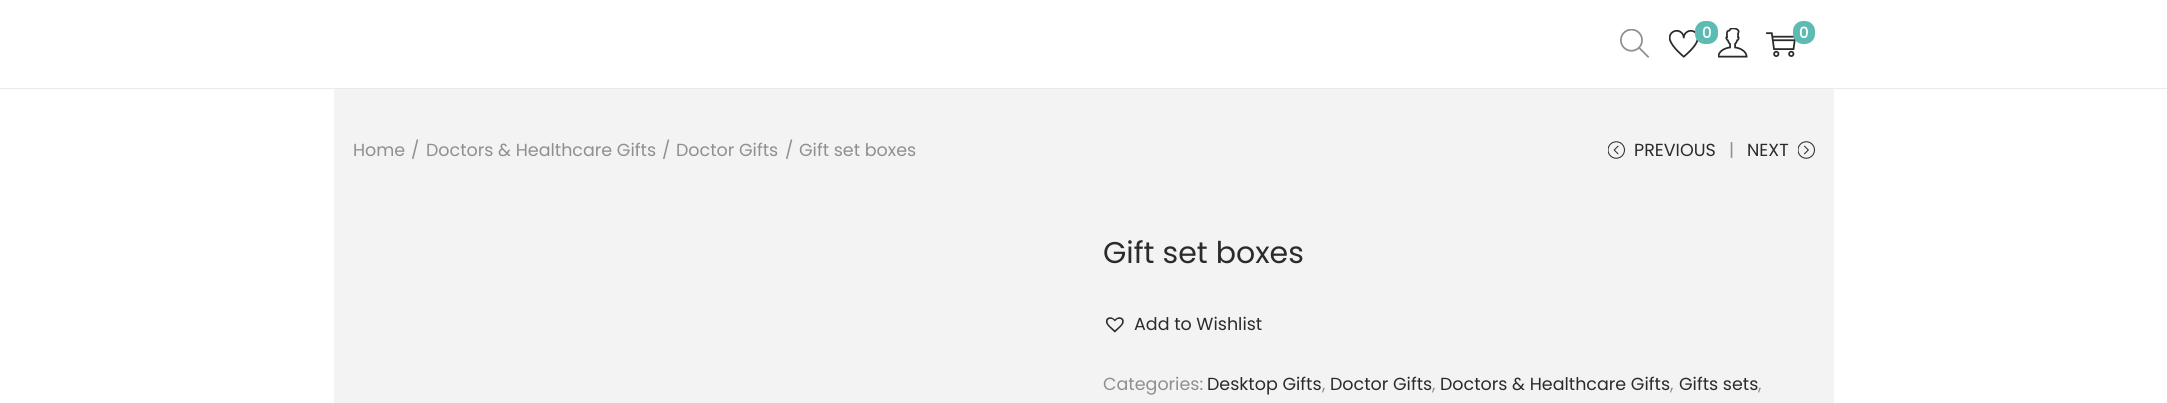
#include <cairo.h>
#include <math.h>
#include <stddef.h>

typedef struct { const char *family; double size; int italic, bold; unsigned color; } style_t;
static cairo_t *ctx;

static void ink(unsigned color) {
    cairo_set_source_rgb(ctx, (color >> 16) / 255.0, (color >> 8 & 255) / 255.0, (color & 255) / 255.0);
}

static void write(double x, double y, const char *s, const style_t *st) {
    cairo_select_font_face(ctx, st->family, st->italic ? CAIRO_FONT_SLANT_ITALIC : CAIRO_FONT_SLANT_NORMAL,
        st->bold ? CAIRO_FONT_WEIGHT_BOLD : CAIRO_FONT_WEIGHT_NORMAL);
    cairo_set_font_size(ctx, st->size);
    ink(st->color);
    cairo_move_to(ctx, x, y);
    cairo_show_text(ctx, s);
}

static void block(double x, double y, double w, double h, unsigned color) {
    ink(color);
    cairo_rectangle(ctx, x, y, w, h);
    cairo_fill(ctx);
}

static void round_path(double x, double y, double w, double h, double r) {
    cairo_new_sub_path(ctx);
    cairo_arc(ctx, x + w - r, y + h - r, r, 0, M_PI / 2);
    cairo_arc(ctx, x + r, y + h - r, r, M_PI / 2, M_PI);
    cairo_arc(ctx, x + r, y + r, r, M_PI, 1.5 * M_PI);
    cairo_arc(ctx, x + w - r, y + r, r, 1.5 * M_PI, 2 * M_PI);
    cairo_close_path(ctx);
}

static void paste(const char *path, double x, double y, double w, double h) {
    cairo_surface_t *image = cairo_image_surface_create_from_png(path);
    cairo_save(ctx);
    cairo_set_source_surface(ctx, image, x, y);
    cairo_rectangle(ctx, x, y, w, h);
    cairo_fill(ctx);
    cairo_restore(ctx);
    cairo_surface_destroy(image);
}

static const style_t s1 = {"Poppins", 15, 0, 1, 0xffffff};
static const style_t s2 = {"Poppins", 17.5, 0, 0, 0x8f8f8f};
static const style_t s3 = {"Poppins", 17.5, 0, 0, 0x2b2b2b};
static const style_t s4 = {"Poppins", 30, 0, 0, 0x2b2b2b};

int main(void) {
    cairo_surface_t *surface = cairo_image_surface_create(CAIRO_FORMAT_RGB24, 2167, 403);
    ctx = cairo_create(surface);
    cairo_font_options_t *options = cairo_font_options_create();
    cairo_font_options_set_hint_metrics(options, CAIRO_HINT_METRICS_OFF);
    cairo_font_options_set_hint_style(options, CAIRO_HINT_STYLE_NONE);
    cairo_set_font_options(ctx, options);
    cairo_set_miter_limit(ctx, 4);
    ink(0xffffff);
    cairo_paint(ctx);
    block(0, 88, 2167, 1, 0xeaeaea);
    paste("pic1.png", 1620, 29, 30, 29);
    paste("pic2.png", 1669, 29, 29, 29);
    ink(0x5cbbb2);
    round_path(1695, 21, 23, 23, 10);
    cairo_fill(ctx);
    write(1702, 38, "0", &s1);
    paste("pic3.png", 1718, 28, 30, 30);
    paste("pic4.png", 1766, 32, 30, 25);
    ink(0x5cbbb2);
    round_path(1793, 21, 22, 23, 10);
    cairo_fill(ctx);
    write(1799, 38, "0", &s1);
    block(334, 89, 1500, 314, 0xf3f3f3);
    write(353, 156, "Home", &s2);
    write(411, 156, "/", &s2);
    write(426, 156, "Doctors & Healthcare Gifts", &s2);
    write(662, 156, "/", &s2);
    write(676, 156, "Doctor Gifts", &s2);
    write(785, 156, "/", &s2);
    write(799, 156, "Gift set boxes", &s2);
    paste("pic5.png", 1608, 141, 17, 18);
    write(1634, 156, "PREVIOUS", &s3);
    write(1729, 156, "|", &s2);
    write(1747, 156, "NEXT", &s3);
    paste("pic6.png", 1798, 141, 17, 18);
    write(1103, 263, "Gift set boxes", &s4);
    paste("pic7.png", 1105, 317, 19, 16);
    write(1134, 330, "Add to Wishlist", &s3);
    write(1103, 390, "Categories:", &s2);
    write(1207, 390, "Desktop Gifts", &s3);
    write(1322, 390, ",", &s2);
    write(1330, 390, "Doctor Gifts", &s3);
    write(1432, 390, ",", &s2);
    write(1440, 390, "Doctors & Healthcare Gifts", &s3);
    write(1670, 390, ",", &s2);
    write(1679, 390, "Gifts sets", &s3);
    write(1758, 390, ",", &s2);
    cairo_surface_write_to_png(surface, "screenshot.png");
    cairo_font_options_destroy(options);
    cairo_destroy(ctx);
    cairo_surface_destroy(surface);
    return 0;
}
